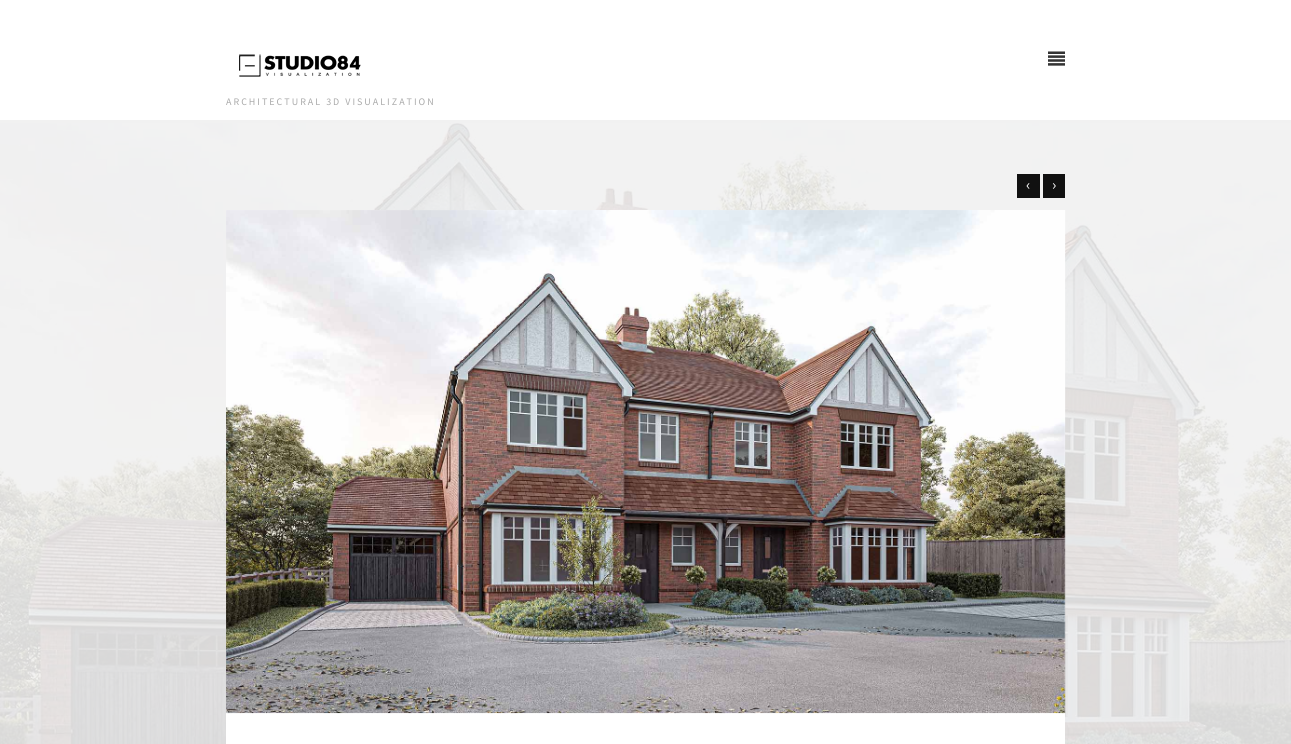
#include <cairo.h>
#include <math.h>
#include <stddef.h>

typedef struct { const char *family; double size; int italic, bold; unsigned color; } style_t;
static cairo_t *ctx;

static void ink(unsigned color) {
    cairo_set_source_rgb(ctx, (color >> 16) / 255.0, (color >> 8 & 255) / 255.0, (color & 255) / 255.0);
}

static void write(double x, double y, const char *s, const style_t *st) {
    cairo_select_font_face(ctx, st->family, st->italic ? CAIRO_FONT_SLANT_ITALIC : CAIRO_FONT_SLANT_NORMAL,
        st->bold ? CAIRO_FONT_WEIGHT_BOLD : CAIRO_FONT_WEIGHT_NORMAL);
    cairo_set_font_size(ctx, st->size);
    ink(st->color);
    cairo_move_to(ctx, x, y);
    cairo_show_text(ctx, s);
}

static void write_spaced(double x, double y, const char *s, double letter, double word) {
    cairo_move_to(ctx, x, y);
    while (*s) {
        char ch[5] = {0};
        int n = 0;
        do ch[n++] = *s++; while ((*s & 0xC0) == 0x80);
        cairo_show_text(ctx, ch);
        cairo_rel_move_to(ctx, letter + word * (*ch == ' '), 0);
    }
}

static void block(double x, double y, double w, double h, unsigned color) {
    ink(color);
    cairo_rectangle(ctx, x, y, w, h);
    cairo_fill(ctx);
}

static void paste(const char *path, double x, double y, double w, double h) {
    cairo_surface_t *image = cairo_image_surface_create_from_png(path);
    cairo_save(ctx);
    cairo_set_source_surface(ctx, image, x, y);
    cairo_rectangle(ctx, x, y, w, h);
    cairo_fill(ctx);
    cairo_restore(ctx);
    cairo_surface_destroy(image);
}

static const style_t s1 = {"Source Sans Pro", 16, 0, 0, 0xffffff};

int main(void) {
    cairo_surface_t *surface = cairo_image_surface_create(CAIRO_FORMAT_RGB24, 1291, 744);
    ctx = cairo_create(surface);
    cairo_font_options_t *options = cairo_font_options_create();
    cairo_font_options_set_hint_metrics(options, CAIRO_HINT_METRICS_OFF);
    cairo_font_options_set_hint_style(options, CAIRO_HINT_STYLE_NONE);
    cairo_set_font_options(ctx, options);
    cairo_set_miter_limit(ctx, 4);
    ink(0xf1f1f1);
    cairo_paint(ctx);
    block(0, 0, 1291, 120, 0xffffff);
    paste("pic1.png", 1048, 51, 17, 15);
    paste("pic2.png", 239, 54, 122, 23);
    cairo_select_font_face(ctx, "Source Sans Pro", CAIRO_FONT_SLANT_NORMAL, CAIRO_FONT_WEIGHT_NORMAL);
    cairo_set_font_size(ctx, 10);
    ink(0xaaaaaa);
    write_spaced(226, 105, "ARCHITECTURAL 3D VISUALIZATION", 2, 0);
    paste("pic3.png", 0, 123, 1291, 621);
    block(1017, 174, 23, 24, 0x111111);
    write(1026, 190, "‹", &s1);
    block(1043, 174, 22, 24, 0x111111);
    write(1052, 190, "›", &s1);
    block(226, 210, 839, 534, 0xffffff);
    paste("pic4.png", 226, 210, 840, 504);
    cairo_surface_write_to_png(surface, "screenshot.png");
    cairo_font_options_destroy(options);
    cairo_destroy(ctx);
    cairo_surface_destroy(surface);
    return 0;
}
